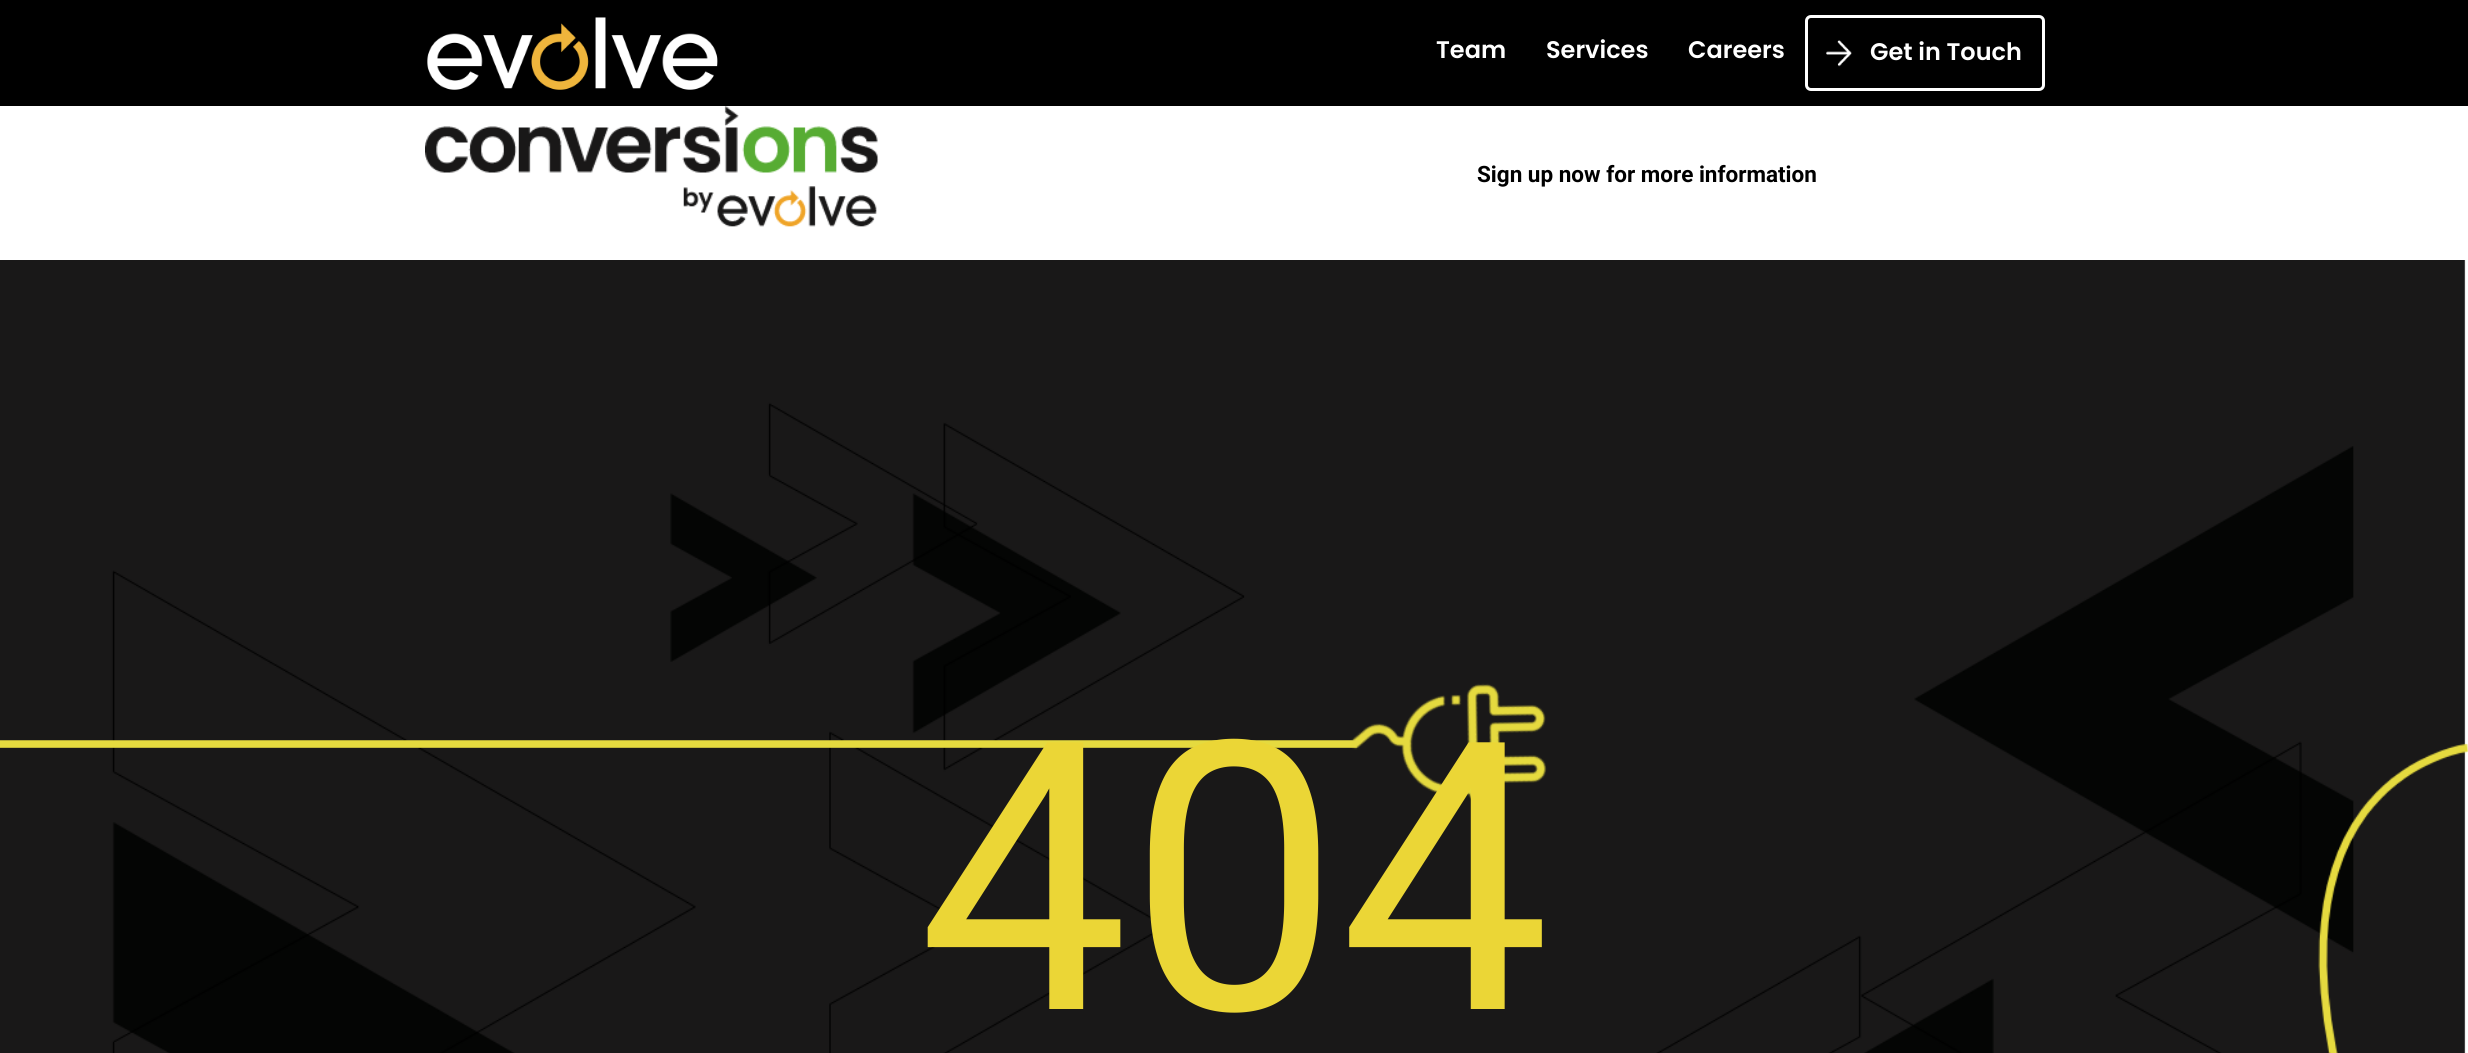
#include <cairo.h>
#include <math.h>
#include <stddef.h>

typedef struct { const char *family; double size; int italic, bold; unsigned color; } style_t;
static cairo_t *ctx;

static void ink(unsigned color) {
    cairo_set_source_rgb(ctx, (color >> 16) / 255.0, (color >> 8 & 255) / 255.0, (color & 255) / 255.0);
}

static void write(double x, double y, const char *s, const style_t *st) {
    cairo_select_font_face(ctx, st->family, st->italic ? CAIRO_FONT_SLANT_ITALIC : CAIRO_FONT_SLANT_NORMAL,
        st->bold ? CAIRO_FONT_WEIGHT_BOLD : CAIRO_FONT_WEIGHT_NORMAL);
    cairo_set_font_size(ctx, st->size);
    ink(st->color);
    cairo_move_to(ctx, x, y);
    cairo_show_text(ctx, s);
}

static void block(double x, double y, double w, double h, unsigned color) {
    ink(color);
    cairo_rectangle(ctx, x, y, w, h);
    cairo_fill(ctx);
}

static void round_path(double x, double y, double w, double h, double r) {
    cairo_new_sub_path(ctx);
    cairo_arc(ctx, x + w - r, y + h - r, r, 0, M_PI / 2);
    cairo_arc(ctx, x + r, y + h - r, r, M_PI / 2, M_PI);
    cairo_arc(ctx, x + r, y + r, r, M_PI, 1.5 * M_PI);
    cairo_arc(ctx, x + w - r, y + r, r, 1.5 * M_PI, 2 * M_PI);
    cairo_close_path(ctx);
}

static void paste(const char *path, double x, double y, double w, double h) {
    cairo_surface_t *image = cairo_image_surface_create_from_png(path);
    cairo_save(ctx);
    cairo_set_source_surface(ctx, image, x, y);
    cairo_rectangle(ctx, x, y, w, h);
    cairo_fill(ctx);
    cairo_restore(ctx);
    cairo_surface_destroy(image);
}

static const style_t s1 = {"Poppins SemiBold", 24, 0, 0, 0xffffff};
static const style_t s2 = {"Roboto", 22.5, 0, 1, 0x000000};
static const style_t s3 = {"Roboto", 375, 0, 0, 0xebd636};

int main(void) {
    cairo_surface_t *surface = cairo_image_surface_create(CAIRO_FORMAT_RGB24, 2468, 1053);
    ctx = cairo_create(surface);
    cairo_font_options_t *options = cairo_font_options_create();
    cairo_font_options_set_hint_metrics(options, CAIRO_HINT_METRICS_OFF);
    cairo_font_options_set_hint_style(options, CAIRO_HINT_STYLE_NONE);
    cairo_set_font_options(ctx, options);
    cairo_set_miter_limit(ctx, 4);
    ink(0xffffff);
    cairo_paint(ctx);
    block(0, 0, 2468, 106, 0x000000);
    paste("pic1.png", 427, 17, 291, 73);
    write(1436, 58, "Team", &s1);
    write(1546, 58, "Services", &s1);
    write(1688, 58, "Careers", &s1);
    paste("pic2.png", 1826, 40, 26, 27);
    round_path(1806.5, 16.5, 237, 73, 4.5);
    cairo_set_line_width(ctx, 3);
    cairo_stroke(ctx);
    write(1870, 60, "Get in Touch", &s1);
    paste("pic3.png", 425, 106, 454, 121);
    write(1477, 182, "Sign up now for more information", &s2);
    paste("pic4.png", 0, 260, 2468, 793);
    write(918, 1009, "404", &s3);
    cairo_surface_write_to_png(surface, "screenshot.png");
    cairo_font_options_destroy(options);
    cairo_destroy(ctx);
    cairo_surface_destroy(surface);
    return 0;
}
